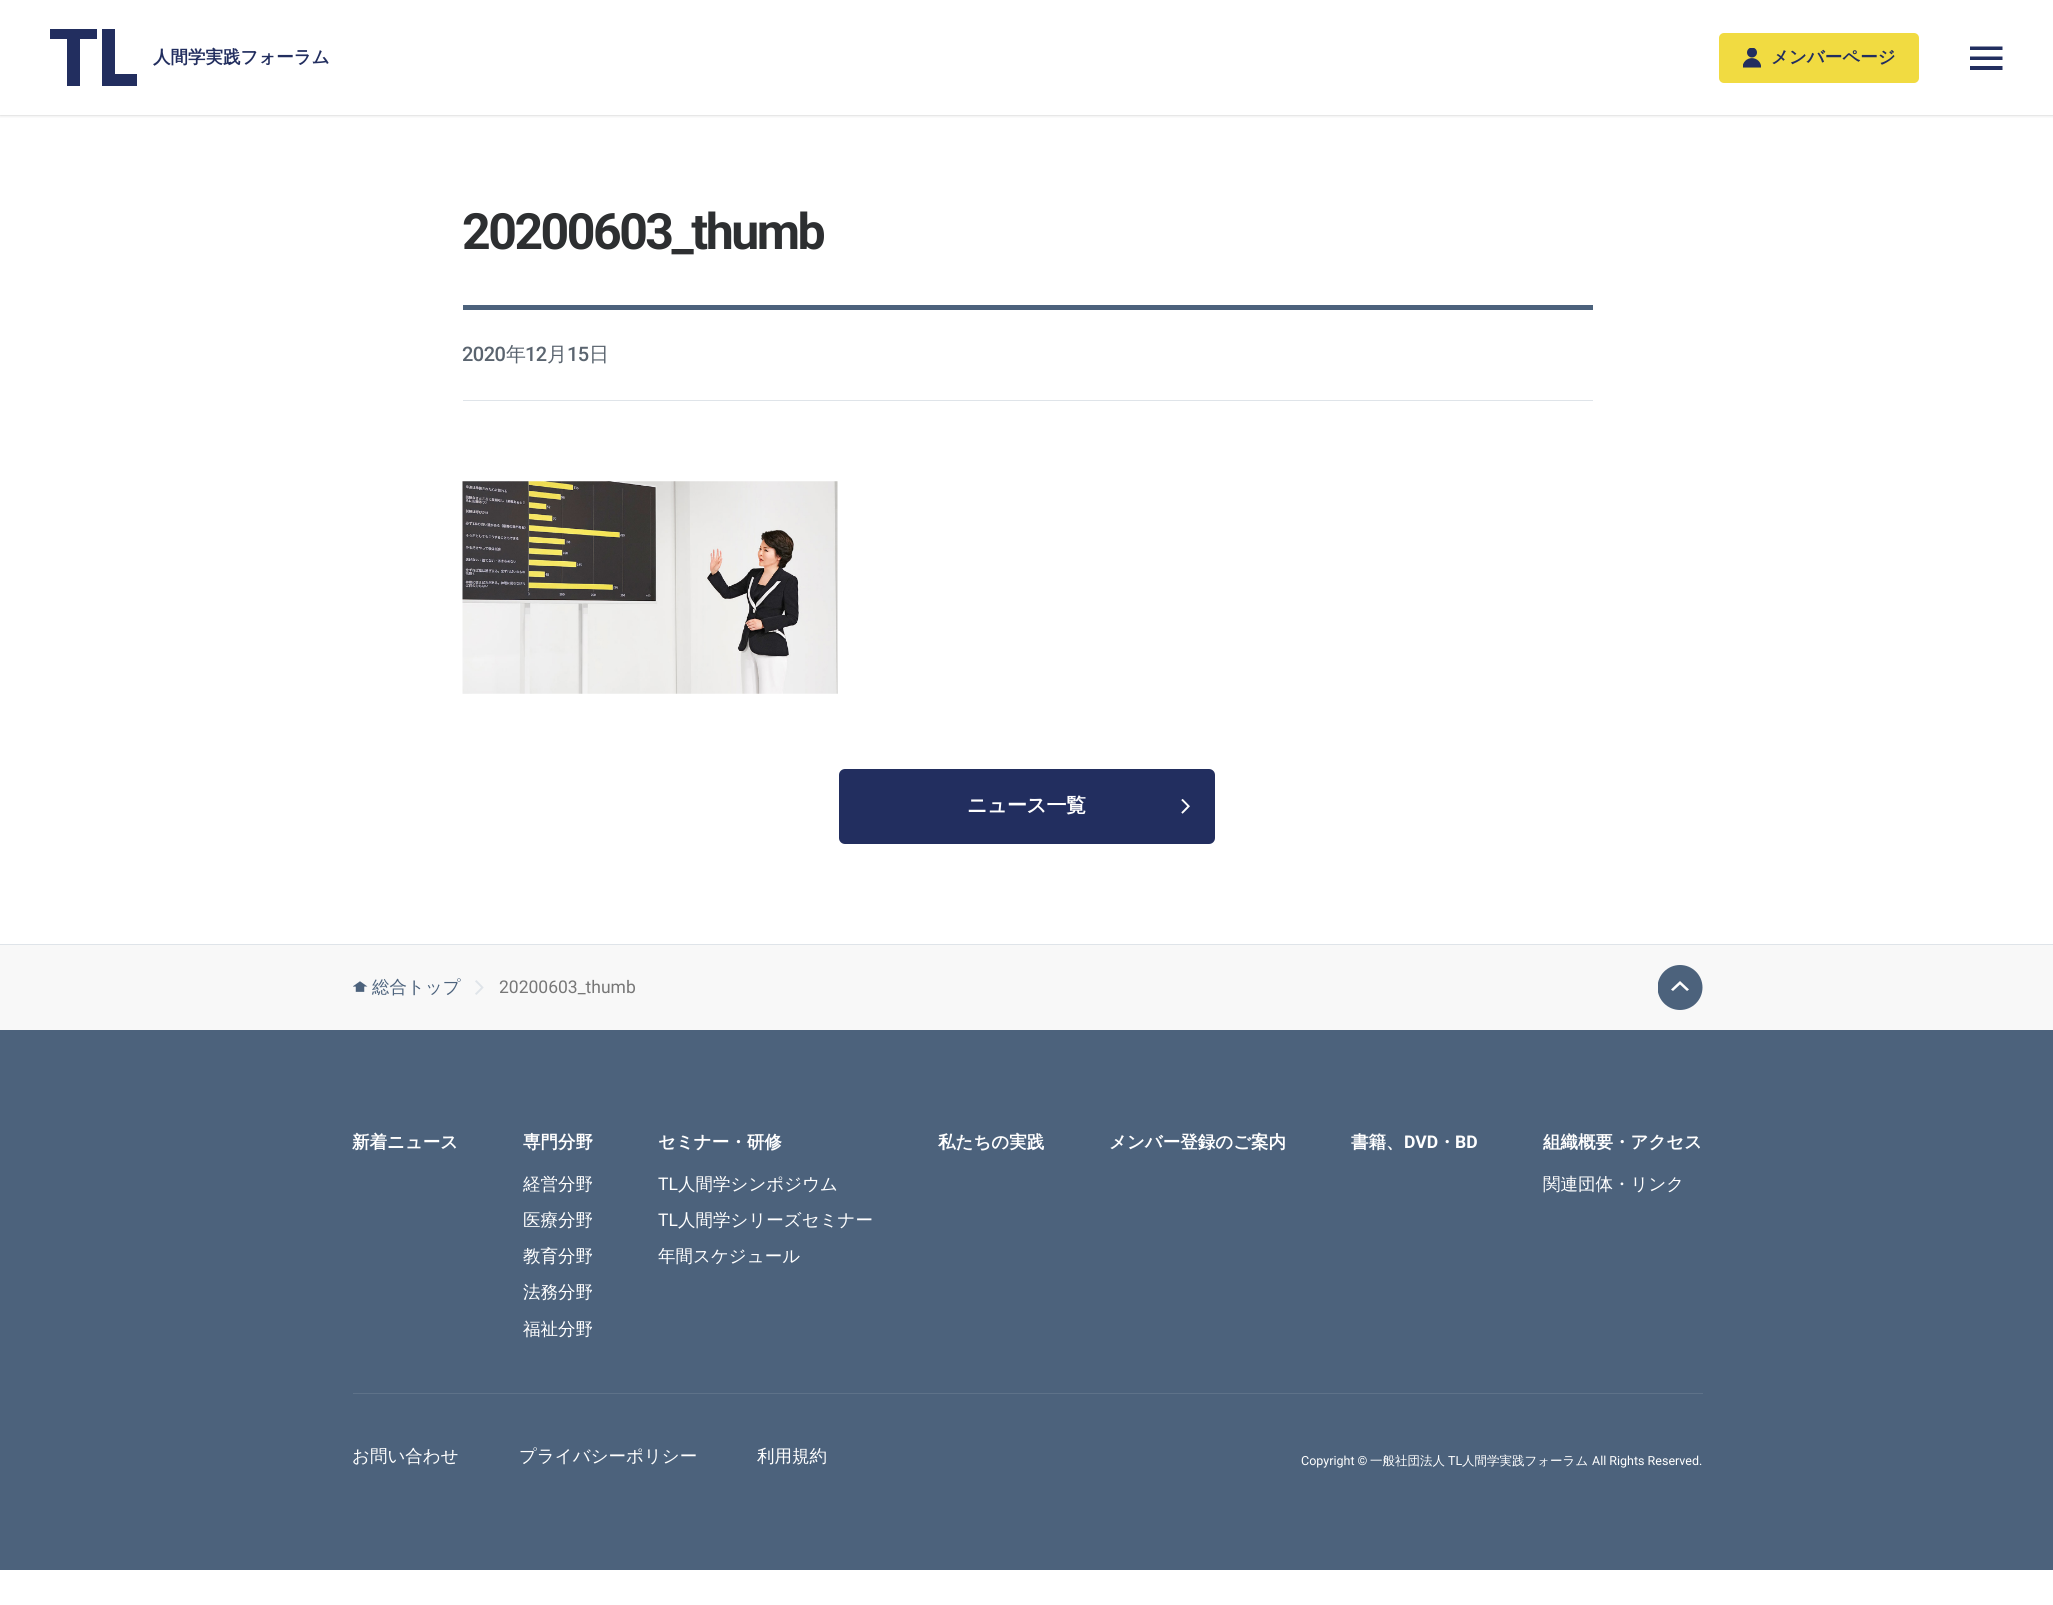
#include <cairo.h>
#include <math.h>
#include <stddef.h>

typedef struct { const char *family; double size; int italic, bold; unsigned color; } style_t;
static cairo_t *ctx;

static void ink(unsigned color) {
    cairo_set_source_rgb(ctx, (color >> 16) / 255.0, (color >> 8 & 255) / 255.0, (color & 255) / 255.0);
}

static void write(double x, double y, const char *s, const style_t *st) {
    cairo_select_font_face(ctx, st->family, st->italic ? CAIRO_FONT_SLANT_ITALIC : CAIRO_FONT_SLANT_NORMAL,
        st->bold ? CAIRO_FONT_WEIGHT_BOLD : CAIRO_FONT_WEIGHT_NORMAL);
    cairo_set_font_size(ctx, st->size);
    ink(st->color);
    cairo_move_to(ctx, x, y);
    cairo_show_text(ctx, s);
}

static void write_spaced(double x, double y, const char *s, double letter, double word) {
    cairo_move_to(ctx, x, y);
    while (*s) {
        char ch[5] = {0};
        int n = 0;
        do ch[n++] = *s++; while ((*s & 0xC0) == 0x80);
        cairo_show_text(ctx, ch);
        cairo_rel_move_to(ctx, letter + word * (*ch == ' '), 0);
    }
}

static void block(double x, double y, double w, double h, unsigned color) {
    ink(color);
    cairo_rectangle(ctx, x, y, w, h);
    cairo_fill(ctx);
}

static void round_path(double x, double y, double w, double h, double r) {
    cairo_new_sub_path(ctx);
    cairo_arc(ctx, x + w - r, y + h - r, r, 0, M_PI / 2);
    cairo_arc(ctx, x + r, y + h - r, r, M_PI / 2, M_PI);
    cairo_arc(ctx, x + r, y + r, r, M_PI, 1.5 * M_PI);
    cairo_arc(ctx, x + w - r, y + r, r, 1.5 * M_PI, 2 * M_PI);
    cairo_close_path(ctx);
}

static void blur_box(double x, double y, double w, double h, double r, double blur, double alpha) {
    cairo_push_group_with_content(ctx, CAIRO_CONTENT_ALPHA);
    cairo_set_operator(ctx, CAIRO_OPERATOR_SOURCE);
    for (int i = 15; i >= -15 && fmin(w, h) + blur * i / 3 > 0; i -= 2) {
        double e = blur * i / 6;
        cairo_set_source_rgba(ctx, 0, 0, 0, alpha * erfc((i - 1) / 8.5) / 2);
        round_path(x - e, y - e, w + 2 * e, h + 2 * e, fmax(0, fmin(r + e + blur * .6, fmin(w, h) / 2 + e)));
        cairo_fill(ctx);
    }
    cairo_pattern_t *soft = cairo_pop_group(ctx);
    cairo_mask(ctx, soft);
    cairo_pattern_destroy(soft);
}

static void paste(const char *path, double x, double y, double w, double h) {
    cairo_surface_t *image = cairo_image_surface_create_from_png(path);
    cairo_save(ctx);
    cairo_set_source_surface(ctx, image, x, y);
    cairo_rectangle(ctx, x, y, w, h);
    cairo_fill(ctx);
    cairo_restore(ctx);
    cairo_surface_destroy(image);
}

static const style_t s1 = {"WenQuanYi Zen Hei", 17.5, 0, 1, 0x222e5f};
static const style_t s2 = {"WenQuanYi Zen Hei Medium", 17.5, 0, 0, 0x4c627c};
static const style_t s3 = {"Roboto", 17.5, 0, 0, 0x777777};
static const style_t s4 = {"WenQuanYi Zen Hei", 17.5, 0, 1, 0xffffff};
static const style_t s5 = {"WenQuanYi Zen Hei Medium", 17.5, 0, 0, 0xffffff};
static const style_t s6 = {"Roboto", 17.5, 0, 0, 0xffffff};
static const style_t s7 = {"Roboto", 17.5, 0, 1, 0xffffff};
static const style_t s8 = {"Roboto", 12.5, 0, 0, 0xffffff};
static const style_t s9 = {"WenQuanYi Zen Hei Medium", 12.5, 0, 0, 0xffffff};

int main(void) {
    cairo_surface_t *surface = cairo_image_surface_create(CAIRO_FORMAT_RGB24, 2053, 1605);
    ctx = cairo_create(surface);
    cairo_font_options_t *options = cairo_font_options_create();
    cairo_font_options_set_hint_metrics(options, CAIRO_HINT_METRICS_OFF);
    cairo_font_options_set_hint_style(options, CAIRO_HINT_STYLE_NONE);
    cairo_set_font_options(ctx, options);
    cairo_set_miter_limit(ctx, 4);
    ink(0xffffff);
    cairo_paint(ctx);
    cairo_save(ctx);
    cairo_rectangle(ctx, 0, 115, 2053, 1);
    cairo_clip(ctx);
    ink(0x000000);
    blur_box(0, 1, 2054, 115, 0, 1, 0.06);
    cairo_restore(ctx);
    cairo_save(ctx);
    cairo_rectangle(ctx, 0, 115, 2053, 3);
    cairo_clip(ctx);
    ink(0x000000);
    blur_box(0, 1, 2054, 115, 0, 2, 0.1);
    cairo_restore(ctx);
    ink(0x222e5f);
    cairo_new_path(ctx);
    cairo_move_to(ctx, 50, 29);
    cairo_line_to(ctx, 50, 39);
    cairo_line_to(ctx, 67, 39);
    cairo_line_to(ctx, 67, 86);
    cairo_line_to(ctx, 80, 86);
    cairo_line_to(ctx, 80, 39);
    cairo_line_to(ctx, 97, 39);
    cairo_line_to(ctx, 97, 29);
    cairo_close_path(ctx);
    cairo_fill(ctx);
    cairo_new_path(ctx);
    cairo_move_to(ctx, 102, 86);
    cairo_line_to(ctx, 102, 29);
    cairo_line_to(ctx, 115, 29);
    cairo_line_to(ctx, 115, 74);
    cairo_line_to(ctx, 137, 74);
    cairo_line_to(ctx, 137, 86);
    cairo_close_path(ctx);
    cairo_fill(ctx);
    write(153, 63, "人間学実践フォーラム", &s1);
    ink(0xf1db41);
    round_path(1719, 33, 200, 50, 5);
    cairo_fill(ctx);
    paste("pic1.png", 1743, 48, 18, 20);
    write(1771, 63, "メンバーページ", &s1);
    cairo_new_path(ctx);
    cairo_move_to(ctx, 1970, 70);
    cairo_line_to(ctx, 1970, 66);
    cairo_line_to(ctx, 2002.5, 66);
    cairo_line_to(ctx, 2002.5, 70);
    cairo_close_path(ctx);
    cairo_move_to(ctx, 1970, 60);
    cairo_line_to(ctx, 1970, 56.5);
    cairo_line_to(ctx, 2002.5, 56.5);
    cairo_line_to(ctx, 2002.5, 60);
    cairo_close_path(ctx);
    cairo_move_to(ctx, 1970, 50);
    cairo_line_to(ctx, 1970, 46.5);
    cairo_line_to(ctx, 2002.5, 46.5);
    cairo_line_to(ctx, 2002.5, 50);
    cairo_close_path(ctx);
    cairo_fill(ctx);
    block(463, 305, 1130, 5, 0x4c627c);
    cairo_select_font_face(ctx, "Roboto", CAIRO_FONT_SLANT_NORMAL, CAIRO_FONT_WEIGHT_BOLD);
    cairo_set_font_size(ctx, 50);
    ink(0x2d2f31);
    write_spaced(462, 249, "20200603_thumb", -2.5, 0);
    block(463, 400, 1130, 1, 0xdfe4e9);
    cairo_select_font_face(ctx, "Roboto Medium", CAIRO_FONT_SLANT_NORMAL, CAIRO_FONT_WEIGHT_NORMAL);
    cairo_set_font_size(ctx, 20);
    ink(0x5a646f);
    write_spaced(462, 361, "2020", -0.5, 0);
    cairo_select_font_face(ctx, "WenQuanYi Zen Hei Medium", CAIRO_FONT_SLANT_NORMAL, CAIRO_FONT_WEIGHT_NORMAL);
    write_spaced(506, 361, "年", -0.5, 0);
    cairo_select_font_face(ctx, "Roboto Medium", CAIRO_FONT_SLANT_NORMAL, CAIRO_FONT_WEIGHT_NORMAL);
    write_spaced(525, 361, "12", -0.5, 0);
    cairo_select_font_face(ctx, "WenQuanYi Zen Hei Medium", CAIRO_FONT_SLANT_NORMAL, CAIRO_FONT_WEIGHT_NORMAL);
    write_spaced(547, 361, "月", -0.5, 0);
    cairo_select_font_face(ctx, "Roboto Medium", CAIRO_FONT_SLANT_NORMAL, CAIRO_FONT_WEIGHT_NORMAL);
    write_spaced(567, 361, "15", -0.5, 0);
    cairo_select_font_face(ctx, "WenQuanYi Zen Hei Medium", CAIRO_FONT_SLANT_NORMAL, CAIRO_FONT_WEIGHT_NORMAL);
    write_spaced(589, 361, "日", -0.5, 0);
    paste("pic2.png", 462, 481, 376, 213);
    ink(0x222e5f);
    round_path(839, 769, 376, 75, 6);
    cairo_fill(ctx);
    cairo_select_font_face(ctx, "WenQuanYi Zen Hei", CAIRO_FONT_SLANT_NORMAL, CAIRO_FONT_WEIGHT_BOLD);
    ink(0xffffff);
    write_spaced(967, 812, "ニュース一覧", -0.5, 0);
    paste("pic3.png", 1181, 799, 9, 15);
    block(0, 945, 2053, 85, 0xf8f8f8);
    block(0, 944, 2053, 1, 0xdfe4e9);
    paste("pic4.png", 353, 981, 15, 11);
    write(372, 993, "総合トップ", &s2);
    paste("pic5.png", 475, 980, 9, 15);
    write(499, 993, "20200603_thumb", &s3);
    cairo_save(ctx);
    cairo_rectangle(ctx, 1658, 965, 45, 45);
    cairo_clip(ctx);
    ink(0x4c627c);
    cairo_arc(ctx, 1680, 987.5, 22.5, 0, 2 * M_PI);
    cairo_fill(ctx);
    cairo_restore(ctx);
    ink(0xffffff);
    cairo_new_path(ctx);
    cairo_move_to(ctx, 1689, 989.5);
    cairo_line_to(ctx, 1687, 991);
    cairo_line_to(ctx, 1680, 984.5);
    cairo_line_to(ctx, 1673, 991);
    cairo_line_to(ctx, 1671, 989.5);
    cairo_line_to(ctx, 1680, 981);
    cairo_close_path(ctx);
    cairo_fill(ctx);
    block(0, 1030, 2053, 540, 0x4c627c);
    write(352, 1148, "新着ニュース", &s4);
    write(523, 1148, "専門分野", &s4);
    write(523, 1190, "経営分野", &s5);
    write(523, 1226, "医療分野", &s5);
    write(523, 1262, "教育分野", &s5);
    write(523, 1298, "法務分野", &s5);
    write(523, 1335, "福祉分野", &s5);
    write(658, 1148, "セミナー・研修", &s4);
    write(658, 1190, "TL", &s6);
    write(678, 1190, "人間学シンポジウム", &s5);
    write(658, 1226, "TL", &s6);
    write(678, 1226, "人間学シリーズセミナー", &s5);
    write(658, 1262, "年間スケジュール", &s5);
    write(938, 1148, "私たちの実践", &s4);
    write(1109, 1148, "メンバー登録のご案内", &s4);
    write(1351, 1148, "書籍、", &s4);
    write(1404, 1148, "DVD", &s7);
    write(1438, 1148, "・", &s4);
    write(1455, 1148, "BD", &s7);
    write(1543, 1148, "組織概要・アクセス", &s4);
    write(1543, 1190, "関連団体・リンク", &s5);
    block(353, 1393, 1350, 1, 0x5e7289);
    write(352, 1462, "お問い合わせ", &s5);
    write(519, 1462, "プライバシーポリシー", &s5);
    write(757, 1462, "利用規約", &s5);
    write(1301, 1465, "Copyright ©", &s8);
    write(1370, 1465, "一般社団法人", &s9);
    write(1448, 1465, "TL", &s8);
    write(1462, 1465, "人間学実践フォーラム", &s9);
    write(1592, 1465, "All Rights Reserved.", &s8);
    cairo_surface_write_to_png(surface, "screenshot.png");
    cairo_font_options_destroy(options);
    cairo_destroy(ctx);
    cairo_surface_destroy(surface);
    return 0;
}
